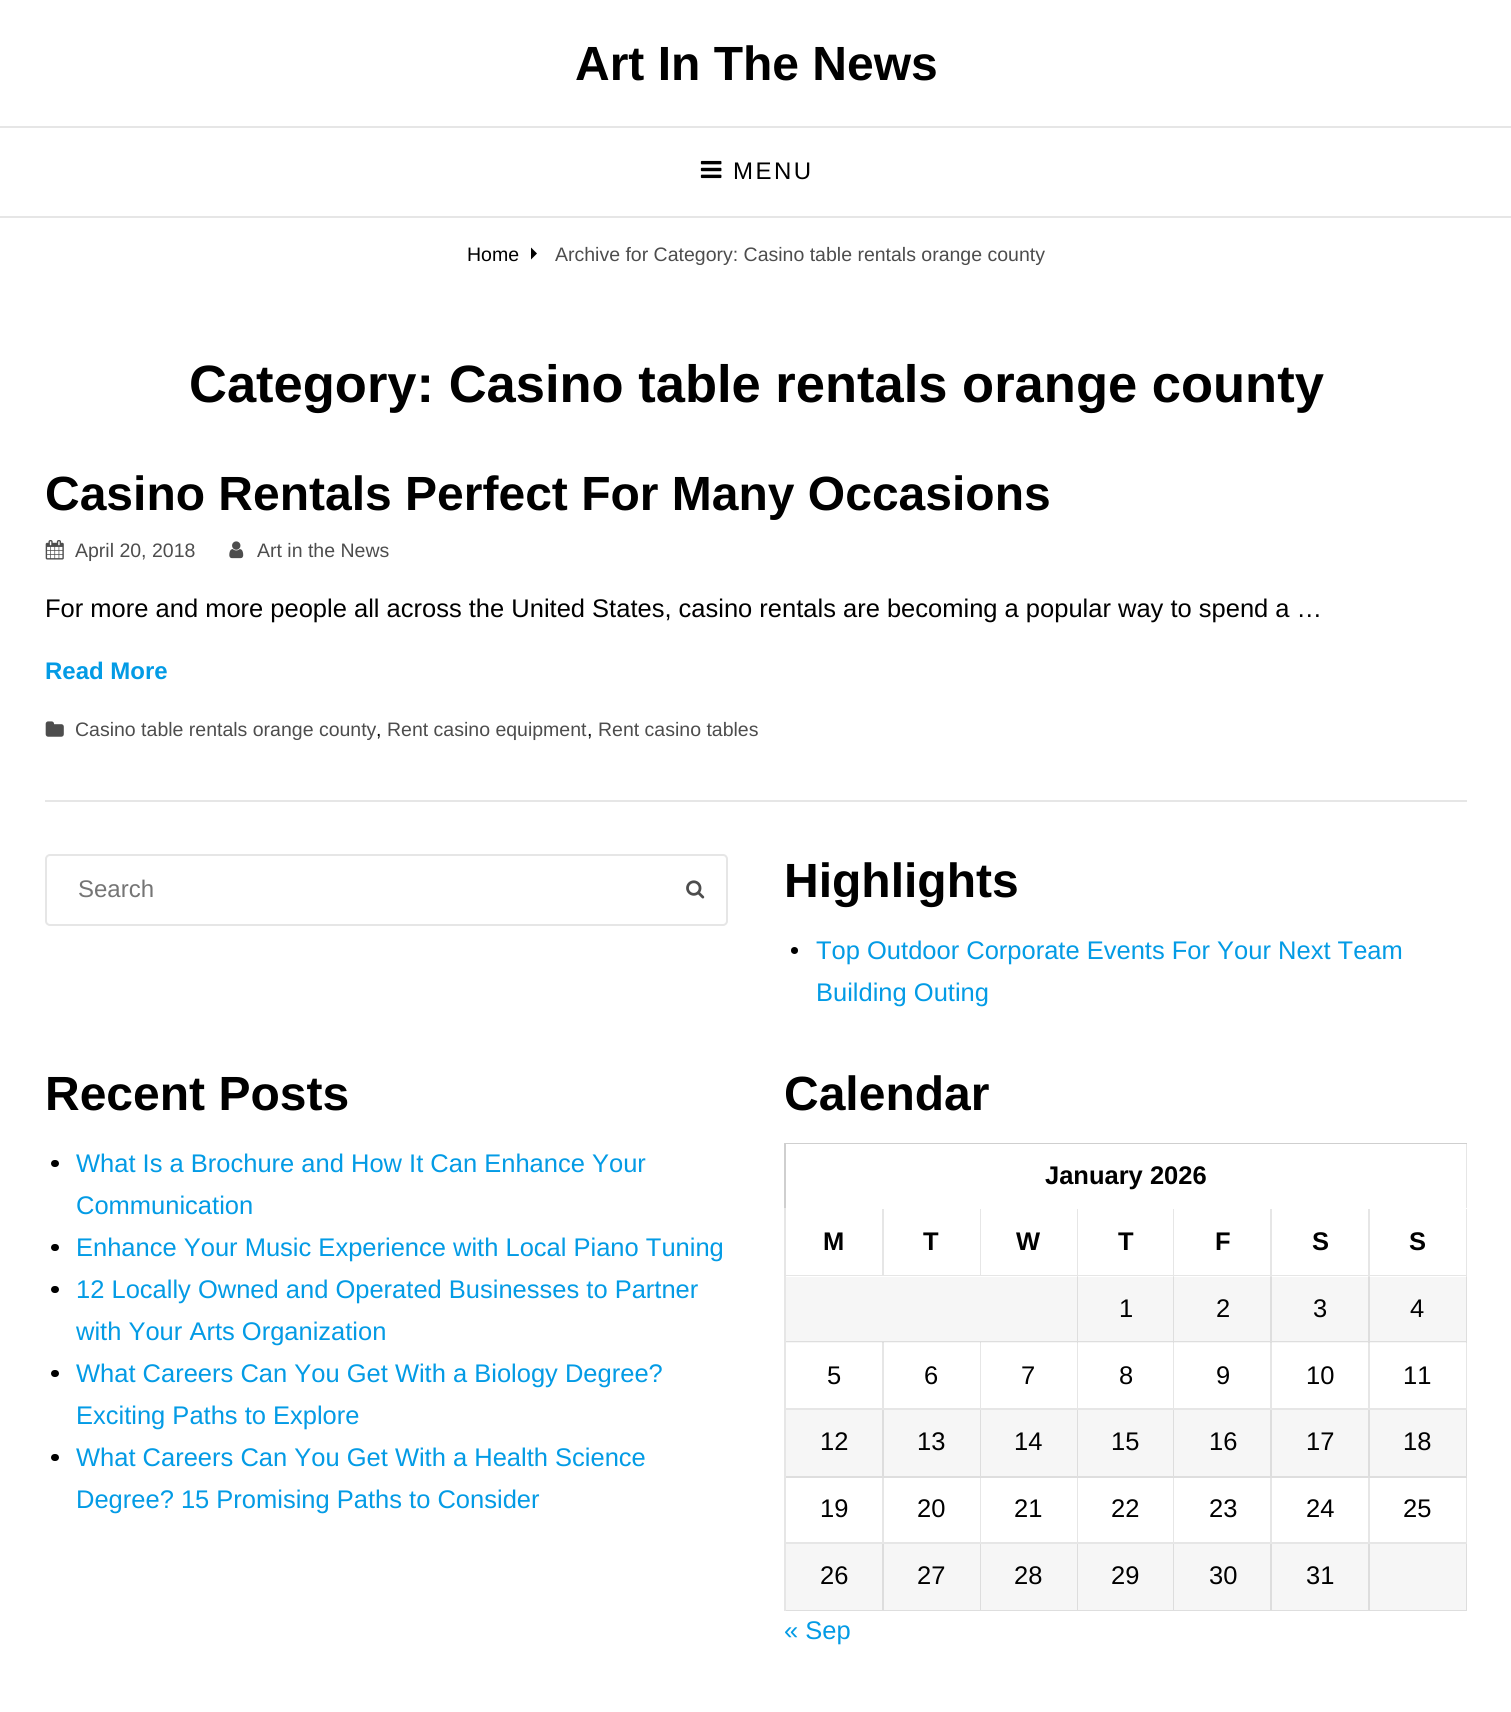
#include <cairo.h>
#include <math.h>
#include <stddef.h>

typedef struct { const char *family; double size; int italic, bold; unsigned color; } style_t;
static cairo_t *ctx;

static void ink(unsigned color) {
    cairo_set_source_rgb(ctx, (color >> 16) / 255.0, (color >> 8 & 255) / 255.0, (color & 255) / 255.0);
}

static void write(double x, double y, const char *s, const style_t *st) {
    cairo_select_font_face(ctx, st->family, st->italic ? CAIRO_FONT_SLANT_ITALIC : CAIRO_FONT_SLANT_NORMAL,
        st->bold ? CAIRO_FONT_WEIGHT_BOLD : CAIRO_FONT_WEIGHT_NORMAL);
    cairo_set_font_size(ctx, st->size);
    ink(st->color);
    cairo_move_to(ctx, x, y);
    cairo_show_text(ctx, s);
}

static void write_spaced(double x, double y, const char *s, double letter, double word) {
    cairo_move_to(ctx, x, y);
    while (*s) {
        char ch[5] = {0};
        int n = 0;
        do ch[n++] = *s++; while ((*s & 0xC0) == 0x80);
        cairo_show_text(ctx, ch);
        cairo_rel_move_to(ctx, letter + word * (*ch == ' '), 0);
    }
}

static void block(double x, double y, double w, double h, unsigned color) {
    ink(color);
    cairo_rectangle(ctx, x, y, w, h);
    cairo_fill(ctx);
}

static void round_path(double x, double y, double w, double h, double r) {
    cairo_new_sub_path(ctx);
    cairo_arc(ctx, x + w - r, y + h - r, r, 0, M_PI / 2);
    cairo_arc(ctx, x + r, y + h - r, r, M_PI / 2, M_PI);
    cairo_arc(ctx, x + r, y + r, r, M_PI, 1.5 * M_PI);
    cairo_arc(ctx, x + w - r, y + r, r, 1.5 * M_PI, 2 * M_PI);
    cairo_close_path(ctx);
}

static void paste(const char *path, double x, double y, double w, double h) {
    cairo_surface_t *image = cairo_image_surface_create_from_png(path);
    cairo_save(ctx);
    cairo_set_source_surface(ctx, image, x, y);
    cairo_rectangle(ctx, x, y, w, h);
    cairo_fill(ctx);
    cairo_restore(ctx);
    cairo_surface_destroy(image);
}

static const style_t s1 = {"Liberation Sans", 48, 0, 1, 0x000000};
static const style_t s2 = {"Liberation Sans", 19.5, 0, 0, 0x000000};
static const style_t s3 = {"Liberation Sans", 19.5, 0, 0, 0x4d4d4d};
static const style_t s4 = {"Liberation Sans", 52.5, 0, 1, 0x000000};
static const style_t s5 = {"Liberation Sans", 25.5, 0, 0, 0x000000};
static const style_t s6 = {"Liberation Sans", 24, 0, 1, 0x039be5};
static const style_t s7 = {"Liberation Sans", 24, 0, 0, 0x757575};
static const style_t s8 = {"Liberation Sans", 25.5, 0, 0, 0x039be5};
static const style_t s9 = {"Liberation Sans", 25.5, 0, 1, 0x000000};

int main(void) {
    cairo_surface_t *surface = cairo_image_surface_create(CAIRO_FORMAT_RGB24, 1511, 1712);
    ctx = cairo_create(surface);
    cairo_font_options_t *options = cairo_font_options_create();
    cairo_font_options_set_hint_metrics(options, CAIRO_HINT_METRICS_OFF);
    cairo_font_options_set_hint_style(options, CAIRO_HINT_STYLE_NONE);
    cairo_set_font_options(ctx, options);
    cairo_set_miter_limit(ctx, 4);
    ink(0xffffff);
    cairo_paint(ctx);
    write(575, 80, "Art In The News", &s1);
    block(0, 126, 1511, 2, 0xe6e6e6);
    block(0, 216, 1511, 2, 0xe6e6e6);
    paste("pic1.png", 700, 160, 22, 19);
    cairo_select_font_face(ctx, "Liberation Sans", CAIRO_FONT_SLANT_NORMAL, CAIRO_FONT_WEIGHT_NORMAL);
    cairo_set_font_size(ctx, 24);
    ink(0x000000);
    write_spaced(733, 179, "MENU", 2.5, 0);
    write(467, 261, "Home", &s2);
    cairo_new_path(ctx);
    cairo_move_to(ctx, 531, 259.5);
    cairo_line_to(ctx, 531, 247.5);
    cairo_line_to(ctx, 537, 253.5);
    cairo_close_path(ctx);
    cairo_fill(ctx);
    write(555, 261, "Archive for Category: Casino table rentals orange county", &s3);
    write(189, 402, "Category: Casino table rentals orange county", &s4);
    block(45, 800, 1422, 2, 0xe6e6e6);
    write(45, 510, "Casino Rentals Perfect For Many Occasions", &s1);
    paste("pic2.png", 45, 540, 19, 20);
    write(75, 557, "April 20, 2018", &s3);
    paste("pic3.png", 229, 541, 15, 18);
    write(257, 557, "Art in the News", &s3);
    write(45, 617, "For more and more people all across the United States, casino rentals are becoming a popular way to spend a …", &s5);
    write(45, 679, "Read More", &s6);
    paste("pic4.png", 45, 721, 19, 16);
    write(75, 736, "Casino table rentals orange county", &s3);
    write(376, 736, ",", &s2);
    write(387, 736, "Rent casino equipment", &s3);
    write(587, 736, ",", &s2);
    write(598, 736, "Rent casino tables", &s3);
    round_path(46, 855, 681, 70, 4);
    ink(0xe6e6e6);
    cairo_stroke(ctx);
    write(78, 897, "Search", &s7);
    paste("pic5.png", 686, 880, 19, 19);
    write(784, 897, "Highlights", &s1);
    cairo_new_path(ctx);
    cairo_arc(ctx, 794.5, 950.5, 3.5, 0, 2 * M_PI);
    cairo_fill(ctx);
    write(816, 959, "Top Outdoor Corporate Events For Your Next Team", &s8);
    write(816, 1001, "Building Outing", &s8);
    write(45, 1110, "Recent Posts", &s1);
    round_path(51, 1160, 8, 7, 3.5);
    cairo_fill(ctx);
    write(76, 1172, "What Is a Brochure and How It Can Enhance Your", &s8);
    write(76, 1214, "Communication", &s8);
    ink(0x000000);
    round_path(51, 1244, 8, 7, 3.5);
    cairo_fill(ctx);
    write(76, 1256, "Enhance Your Music Experience with Local Piano Tuning", &s8);
    ink(0x000000);
    round_path(51, 1286, 8, 7, 3.5);
    cairo_fill(ctx);
    write(76, 1298, "12 Locally Owned and Operated Businesses to Partner", &s8);
    write(76, 1340, "with Your Arts Organization", &s8);
    ink(0x000000);
    round_path(51, 1370, 8, 7, 3.5);
    cairo_fill(ctx);
    write(76, 1382, "What Careers Can You Get With a Biology Degree?", &s8);
    write(76, 1424, "Exciting Paths to Explore", &s8);
    ink(0x000000);
    round_path(51, 1454, 8, 7, 3.5);
    cairo_fill(ctx);
    write(76, 1466, "What Careers Can You Get With a Health Science", &s8);
    write(76, 1508, "Degree? 15 Promising Paths to Consider", &s8);
    write(784, 1110, "Calendar", &s1);
    ink(0xe6e6e6);
    cairo_new_path(ctx);
    cairo_move_to(ctx, 784, 1143);
    cairo_line_to(ctx, 1467, 1143);
    cairo_line_to(ctx, 1467, 1144);
    cairo_line_to(ctx, 786, 1144);
    cairo_close_path(ctx);
    cairo_fill(ctx);
    cairo_set_source_rgba(ctx, 0, 0, 0, 0.1);
    cairo_new_path(ctx);
    cairo_move_to(ctx, 784, 1611);
    cairo_line_to(ctx, 784, 1143);
    cairo_line_to(ctx, 786, 1144);
    cairo_line_to(ctx, 786, 1611);
    cairo_close_path(ctx);
    cairo_fill(ctx);
    ink(0xcfcfcf);
    cairo_new_path(ctx);
    cairo_move_to(ctx, 784, 1143);
    cairo_line_to(ctx, 1467, 1143);
    cairo_line_to(ctx, 1466, 1144);
    cairo_line_to(ctx, 786, 1144);
    cairo_close_path(ctx);
    cairo_fill(ctx);
    cairo_set_source_rgba(ctx, 0, 0, 0, 0.1);
    cairo_new_path(ctx);
    cairo_move_to(ctx, 1467, 1143);
    cairo_line_to(ctx, 1467, 1208);
    cairo_line_to(ctx, 1466, 1208);
    cairo_line_to(ctx, 1466, 1144);
    cairo_close_path(ctx);
    cairo_fill(ctx);
    cairo_new_path(ctx);
    cairo_move_to(ctx, 784, 1208);
    cairo_line_to(ctx, 784, 1143);
    cairo_line_to(ctx, 786, 1144);
    cairo_line_to(ctx, 786, 1208);
    cairo_close_path(ctx);
    cairo_fill(ctx);
    write(1045, 1184, "January 2026", &s9);
    ink(0xe6e6e6);
    cairo_new_path(ctx);
    cairo_move_to(ctx, 884, 1209);
    cairo_line_to(ctx, 884, 1276);
    cairo_line_to(ctx, 882, 1275);
    cairo_line_to(ctx, 882, 1209);
    cairo_close_path(ctx);
    cairo_fill(ctx);
    cairo_set_source_rgba(ctx, 0, 0, 0, 0.1);
    cairo_new_path(ctx);
    cairo_move_to(ctx, 884, 1276);
    cairo_line_to(ctx, 786, 1276);
    cairo_line_to(ctx, 786, 1275);
    cairo_line_to(ctx, 882, 1275);
    cairo_close_path(ctx);
    cairo_fill(ctx);
    write(823, 1250, "M", &s9);
    ink(0xe6e6e6);
    cairo_new_path(ctx);
    cairo_move_to(ctx, 981, 1209);
    cairo_line_to(ctx, 981, 1276);
    cairo_line_to(ctx, 980, 1275);
    cairo_line_to(ctx, 980, 1209);
    cairo_close_path(ctx);
    cairo_fill(ctx);
    cairo_set_source_rgba(ctx, 0, 0, 0, 0.1);
    cairo_new_path(ctx);
    cairo_move_to(ctx, 981, 1276);
    cairo_line_to(ctx, 884, 1276);
    cairo_line_to(ctx, 884, 1275);
    cairo_line_to(ctx, 980, 1275);
    cairo_close_path(ctx);
    cairo_fill(ctx);
    write(923, 1250, "T", &s9);
    ink(0xe6e6e6);
    cairo_new_path(ctx);
    cairo_move_to(ctx, 1078, 1209);
    cairo_line_to(ctx, 1078, 1276);
    cairo_line_to(ctx, 1077, 1275);
    cairo_line_to(ctx, 1077, 1209);
    cairo_close_path(ctx);
    cairo_fill(ctx);
    cairo_set_source_rgba(ctx, 0, 0, 0, 0.1);
    cairo_new_path(ctx);
    cairo_move_to(ctx, 1078, 1276);
    cairo_line_to(ctx, 981, 1276);
    cairo_line_to(ctx, 981, 1275);
    cairo_line_to(ctx, 1077, 1275);
    cairo_close_path(ctx);
    cairo_fill(ctx);
    write(1016, 1250, "W", &s9);
    ink(0xe6e6e6);
    cairo_new_path(ctx);
    cairo_move_to(ctx, 1174, 1209);
    cairo_line_to(ctx, 1174, 1276);
    cairo_line_to(ctx, 1173, 1275);
    cairo_line_to(ctx, 1173, 1209);
    cairo_close_path(ctx);
    cairo_fill(ctx);
    cairo_set_source_rgba(ctx, 0, 0, 0, 0.1);
    cairo_new_path(ctx);
    cairo_move_to(ctx, 1174, 1276);
    cairo_line_to(ctx, 1078, 1276);
    cairo_line_to(ctx, 1078, 1275);
    cairo_line_to(ctx, 1173, 1275);
    cairo_close_path(ctx);
    cairo_fill(ctx);
    write(1118, 1250, "T", &s9);
    ink(0xe6e6e6);
    cairo_new_path(ctx);
    cairo_move_to(ctx, 1272, 1209);
    cairo_line_to(ctx, 1272, 1276);
    cairo_line_to(ctx, 1270, 1275);
    cairo_line_to(ctx, 1270, 1209);
    cairo_close_path(ctx);
    cairo_fill(ctx);
    cairo_set_source_rgba(ctx, 0, 0, 0, 0.1);
    cairo_new_path(ctx);
    cairo_move_to(ctx, 1272, 1276);
    cairo_line_to(ctx, 1174, 1276);
    cairo_line_to(ctx, 1174, 1275);
    cairo_line_to(ctx, 1270, 1275);
    cairo_close_path(ctx);
    cairo_fill(ctx);
    write(1215, 1250, "F", &s9);
    ink(0xe6e6e6);
    cairo_new_path(ctx);
    cairo_move_to(ctx, 1370, 1209);
    cairo_line_to(ctx, 1370, 1276);
    cairo_line_to(ctx, 1368, 1275);
    cairo_line_to(ctx, 1368, 1209);
    cairo_close_path(ctx);
    cairo_fill(ctx);
    cairo_set_source_rgba(ctx, 0, 0, 0, 0.1);
    cairo_new_path(ctx);
    cairo_move_to(ctx, 1370, 1276);
    cairo_line_to(ctx, 1272, 1276);
    cairo_line_to(ctx, 1272, 1275);
    cairo_line_to(ctx, 1368, 1275);
    cairo_close_path(ctx);
    cairo_fill(ctx);
    write(1312, 1250, "S", &s9);
    ink(0xe6e6e6);
    cairo_new_path(ctx);
    cairo_move_to(ctx, 1467, 1209);
    cairo_line_to(ctx, 1467, 1276);
    cairo_line_to(ctx, 1466, 1275);
    cairo_line_to(ctx, 1466, 1209);
    cairo_close_path(ctx);
    cairo_fill(ctx);
    cairo_set_source_rgba(ctx, 0, 0, 0, 0.1);
    cairo_new_path(ctx);
    cairo_move_to(ctx, 1467, 1276);
    cairo_line_to(ctx, 1370, 1276);
    cairo_line_to(ctx, 1370, 1275);
    cairo_line_to(ctx, 1466, 1275);
    cairo_close_path(ctx);
    cairo_fill(ctx);
    write(1409, 1250, "S", &s9);
    block(786, 1277, 681, 66, 0xf6f6f6);
    cairo_set_source_rgba(ctx, 0, 0, 0, 0.1);
    cairo_new_path(ctx);
    cairo_move_to(ctx, 1078, 1276);
    cairo_line_to(ctx, 1078, 1342);
    cairo_line_to(ctx, 1077, 1341);
    cairo_line_to(ctx, 1077, 1276);
    cairo_close_path(ctx);
    cairo_fill(ctx);
    cairo_new_path(ctx);
    cairo_move_to(ctx, 1078, 1342);
    cairo_line_to(ctx, 786, 1342);
    cairo_line_to(ctx, 786, 1341);
    cairo_line_to(ctx, 1077, 1341);
    cairo_close_path(ctx);
    cairo_fill(ctx);
    cairo_new_path(ctx);
    cairo_move_to(ctx, 1174, 1276);
    cairo_line_to(ctx, 1174, 1342);
    cairo_line_to(ctx, 1173, 1341);
    cairo_line_to(ctx, 1173, 1276);
    cairo_close_path(ctx);
    cairo_fill(ctx);
    cairo_new_path(ctx);
    cairo_move_to(ctx, 1174, 1342);
    cairo_line_to(ctx, 1078, 1342);
    cairo_line_to(ctx, 1078, 1341);
    cairo_line_to(ctx, 1173, 1341);
    cairo_close_path(ctx);
    cairo_fill(ctx);
    write(1119, 1317, "1", &s5);
    cairo_set_source_rgba(ctx, 0, 0, 0, 0.1);
    cairo_new_path(ctx);
    cairo_move_to(ctx, 1272, 1276);
    cairo_line_to(ctx, 1272, 1342);
    cairo_line_to(ctx, 1270, 1341);
    cairo_line_to(ctx, 1270, 1276);
    cairo_close_path(ctx);
    cairo_fill(ctx);
    cairo_new_path(ctx);
    cairo_move_to(ctx, 1272, 1342);
    cairo_line_to(ctx, 1174, 1342);
    cairo_line_to(ctx, 1174, 1341);
    cairo_line_to(ctx, 1270, 1341);
    cairo_close_path(ctx);
    cairo_fill(ctx);
    write(1216, 1317, "2", &s5);
    cairo_set_source_rgba(ctx, 0, 0, 0, 0.1);
    cairo_new_path(ctx);
    cairo_move_to(ctx, 1370, 1276);
    cairo_line_to(ctx, 1370, 1342);
    cairo_line_to(ctx, 1368, 1341);
    cairo_line_to(ctx, 1368, 1276);
    cairo_close_path(ctx);
    cairo_fill(ctx);
    cairo_new_path(ctx);
    cairo_move_to(ctx, 1370, 1342);
    cairo_line_to(ctx, 1272, 1342);
    cairo_line_to(ctx, 1272, 1341);
    cairo_line_to(ctx, 1368, 1341);
    cairo_close_path(ctx);
    cairo_fill(ctx);
    write(1313, 1317, "3", &s5);
    cairo_set_source_rgba(ctx, 0, 0, 0, 0.1);
    cairo_new_path(ctx);
    cairo_move_to(ctx, 1467, 1276);
    cairo_line_to(ctx, 1467, 1342);
    cairo_line_to(ctx, 1466, 1341);
    cairo_line_to(ctx, 1466, 1276);
    cairo_close_path(ctx);
    cairo_fill(ctx);
    cairo_new_path(ctx);
    cairo_move_to(ctx, 1467, 1342);
    cairo_line_to(ctx, 1370, 1342);
    cairo_line_to(ctx, 1370, 1341);
    cairo_line_to(ctx, 1466, 1341);
    cairo_close_path(ctx);
    cairo_fill(ctx);
    write(1410, 1317, "4", &s5);
    cairo_set_source_rgba(ctx, 0, 0, 0, 0.1);
    cairo_new_path(ctx);
    cairo_move_to(ctx, 884, 1342);
    cairo_line_to(ctx, 884, 1410);
    cairo_line_to(ctx, 882, 1408);
    cairo_line_to(ctx, 882, 1342);
    cairo_close_path(ctx);
    cairo_fill(ctx);
    cairo_new_path(ctx);
    cairo_move_to(ctx, 884, 1410);
    cairo_line_to(ctx, 786, 1410);
    cairo_line_to(ctx, 786, 1408);
    cairo_line_to(ctx, 882, 1408);
    cairo_close_path(ctx);
    cairo_fill(ctx);
    write(827, 1384, "5", &s5);
    cairo_set_source_rgba(ctx, 0, 0, 0, 0.1);
    cairo_new_path(ctx);
    cairo_move_to(ctx, 981, 1342);
    cairo_line_to(ctx, 981, 1410);
    cairo_line_to(ctx, 980, 1408);
    cairo_line_to(ctx, 980, 1342);
    cairo_close_path(ctx);
    cairo_fill(ctx);
    cairo_new_path(ctx);
    cairo_move_to(ctx, 981, 1410);
    cairo_line_to(ctx, 884, 1410);
    cairo_line_to(ctx, 884, 1408);
    cairo_line_to(ctx, 980, 1408);
    cairo_close_path(ctx);
    cairo_fill(ctx);
    write(924, 1384, "6", &s5);
    cairo_set_source_rgba(ctx, 0, 0, 0, 0.1);
    cairo_new_path(ctx);
    cairo_move_to(ctx, 1078, 1342);
    cairo_line_to(ctx, 1078, 1410);
    cairo_line_to(ctx, 1077, 1408);
    cairo_line_to(ctx, 1077, 1342);
    cairo_close_path(ctx);
    cairo_fill(ctx);
    cairo_new_path(ctx);
    cairo_move_to(ctx, 1078, 1410);
    cairo_line_to(ctx, 981, 1410);
    cairo_line_to(ctx, 981, 1408);
    cairo_line_to(ctx, 1077, 1408);
    cairo_close_path(ctx);
    cairo_fill(ctx);
    write(1021, 1384, "7", &s5);
    cairo_set_source_rgba(ctx, 0, 0, 0, 0.1);
    cairo_new_path(ctx);
    cairo_move_to(ctx, 1174, 1342);
    cairo_line_to(ctx, 1174, 1410);
    cairo_line_to(ctx, 1173, 1408);
    cairo_line_to(ctx, 1173, 1342);
    cairo_close_path(ctx);
    cairo_fill(ctx);
    cairo_new_path(ctx);
    cairo_move_to(ctx, 1174, 1410);
    cairo_line_to(ctx, 1078, 1410);
    cairo_line_to(ctx, 1078, 1408);
    cairo_line_to(ctx, 1173, 1408);
    cairo_close_path(ctx);
    cairo_fill(ctx);
    write(1119, 1384, "8", &s5);
    cairo_set_source_rgba(ctx, 0, 0, 0, 0.1);
    cairo_new_path(ctx);
    cairo_move_to(ctx, 1272, 1342);
    cairo_line_to(ctx, 1272, 1410);
    cairo_line_to(ctx, 1270, 1408);
    cairo_line_to(ctx, 1270, 1342);
    cairo_close_path(ctx);
    cairo_fill(ctx);
    cairo_new_path(ctx);
    cairo_move_to(ctx, 1272, 1410);
    cairo_line_to(ctx, 1174, 1410);
    cairo_line_to(ctx, 1174, 1408);
    cairo_line_to(ctx, 1270, 1408);
    cairo_close_path(ctx);
    cairo_fill(ctx);
    write(1216, 1384, "9", &s5);
    cairo_set_source_rgba(ctx, 0, 0, 0, 0.1);
    cairo_new_path(ctx);
    cairo_move_to(ctx, 1370, 1342);
    cairo_line_to(ctx, 1370, 1410);
    cairo_line_to(ctx, 1368, 1408);
    cairo_line_to(ctx, 1368, 1342);
    cairo_close_path(ctx);
    cairo_fill(ctx);
    cairo_new_path(ctx);
    cairo_move_to(ctx, 1370, 1410);
    cairo_line_to(ctx, 1272, 1410);
    cairo_line_to(ctx, 1272, 1408);
    cairo_line_to(ctx, 1368, 1408);
    cairo_close_path(ctx);
    cairo_fill(ctx);
    write(1306, 1384, "10", &s5);
    cairo_set_source_rgba(ctx, 0, 0, 0, 0.1);
    cairo_new_path(ctx);
    cairo_move_to(ctx, 1467, 1342);
    cairo_line_to(ctx, 1467, 1410);
    cairo_line_to(ctx, 1466, 1408);
    cairo_line_to(ctx, 1466, 1342);
    cairo_close_path(ctx);
    cairo_fill(ctx);
    cairo_new_path(ctx);
    cairo_move_to(ctx, 1467, 1410);
    cairo_line_to(ctx, 1370, 1410);
    cairo_line_to(ctx, 1370, 1408);
    cairo_line_to(ctx, 1466, 1408);
    cairo_close_path(ctx);
    cairo_fill(ctx);
    write(1403, 1384, "11", &s5);
    block(786, 1410, 681, 68, 0xf6f6f6);
    ink(0xdddddd);
    cairo_new_path(ctx);
    cairo_move_to(ctx, 884, 1410);
    cairo_line_to(ctx, 884, 1478);
    cairo_line_to(ctx, 882, 1476);
    cairo_line_to(ctx, 882, 1410);
    cairo_close_path(ctx);
    cairo_fill(ctx);
    cairo_set_source_rgba(ctx, 0, 0, 0, 0.1);
    cairo_new_path(ctx);
    cairo_move_to(ctx, 884, 1478);
    cairo_line_to(ctx, 786, 1478);
    cairo_line_to(ctx, 786, 1476);
    cairo_line_to(ctx, 882, 1476);
    cairo_close_path(ctx);
    cairo_fill(ctx);
    write(820, 1450, "12", &s5);
    ink(0xdddddd);
    cairo_new_path(ctx);
    cairo_move_to(ctx, 981, 1410);
    cairo_line_to(ctx, 981, 1478);
    cairo_line_to(ctx, 980, 1476);
    cairo_line_to(ctx, 980, 1410);
    cairo_close_path(ctx);
    cairo_fill(ctx);
    cairo_set_source_rgba(ctx, 0, 0, 0, 0.1);
    cairo_new_path(ctx);
    cairo_move_to(ctx, 981, 1478);
    cairo_line_to(ctx, 884, 1478);
    cairo_line_to(ctx, 884, 1476);
    cairo_line_to(ctx, 980, 1476);
    cairo_close_path(ctx);
    cairo_fill(ctx);
    write(917, 1450, "13", &s5);
    ink(0xdddddd);
    cairo_new_path(ctx);
    cairo_move_to(ctx, 1078, 1410);
    cairo_line_to(ctx, 1078, 1478);
    cairo_line_to(ctx, 1077, 1476);
    cairo_line_to(ctx, 1077, 1410);
    cairo_close_path(ctx);
    cairo_fill(ctx);
    cairo_set_source_rgba(ctx, 0, 0, 0, 0.1);
    cairo_new_path(ctx);
    cairo_move_to(ctx, 1078, 1478);
    cairo_line_to(ctx, 981, 1478);
    cairo_line_to(ctx, 981, 1476);
    cairo_line_to(ctx, 1077, 1476);
    cairo_close_path(ctx);
    cairo_fill(ctx);
    write(1014, 1450, "14", &s5);
    ink(0xdddddd);
    cairo_new_path(ctx);
    cairo_move_to(ctx, 1174, 1410);
    cairo_line_to(ctx, 1174, 1478);
    cairo_line_to(ctx, 1173, 1476);
    cairo_line_to(ctx, 1173, 1410);
    cairo_close_path(ctx);
    cairo_fill(ctx);
    cairo_set_source_rgba(ctx, 0, 0, 0, 0.1);
    cairo_new_path(ctx);
    cairo_move_to(ctx, 1174, 1478);
    cairo_line_to(ctx, 1078, 1478);
    cairo_line_to(ctx, 1078, 1476);
    cairo_line_to(ctx, 1173, 1476);
    cairo_close_path(ctx);
    cairo_fill(ctx);
    write(1111, 1450, "15", &s5);
    ink(0xdddddd);
    cairo_new_path(ctx);
    cairo_move_to(ctx, 1272, 1410);
    cairo_line_to(ctx, 1272, 1478);
    cairo_line_to(ctx, 1270, 1476);
    cairo_line_to(ctx, 1270, 1410);
    cairo_close_path(ctx);
    cairo_fill(ctx);
    cairo_set_source_rgba(ctx, 0, 0, 0, 0.1);
    cairo_new_path(ctx);
    cairo_move_to(ctx, 1272, 1478);
    cairo_line_to(ctx, 1174, 1478);
    cairo_line_to(ctx, 1174, 1476);
    cairo_line_to(ctx, 1270, 1476);
    cairo_close_path(ctx);
    cairo_fill(ctx);
    write(1209, 1450, "16", &s5);
    ink(0xdddddd);
    cairo_new_path(ctx);
    cairo_move_to(ctx, 1370, 1410);
    cairo_line_to(ctx, 1370, 1478);
    cairo_line_to(ctx, 1368, 1476);
    cairo_line_to(ctx, 1368, 1410);
    cairo_close_path(ctx);
    cairo_fill(ctx);
    cairo_set_source_rgba(ctx, 0, 0, 0, 0.1);
    cairo_new_path(ctx);
    cairo_move_to(ctx, 1370, 1478);
    cairo_line_to(ctx, 1272, 1478);
    cairo_line_to(ctx, 1272, 1476);
    cairo_line_to(ctx, 1368, 1476);
    cairo_close_path(ctx);
    cairo_fill(ctx);
    write(1306, 1450, "17", &s5);
    ink(0xdddddd);
    cairo_new_path(ctx);
    cairo_move_to(ctx, 1467, 1410);
    cairo_line_to(ctx, 1467, 1478);
    cairo_line_to(ctx, 1466, 1476);
    cairo_line_to(ctx, 1466, 1410);
    cairo_close_path(ctx);
    cairo_fill(ctx);
    cairo_set_source_rgba(ctx, 0, 0, 0, 0.1);
    cairo_new_path(ctx);
    cairo_move_to(ctx, 1467, 1478);
    cairo_line_to(ctx, 1370, 1478);
    cairo_line_to(ctx, 1370, 1476);
    cairo_line_to(ctx, 1466, 1476);
    cairo_close_path(ctx);
    cairo_fill(ctx);
    write(1403, 1450, "18", &s5);
    ink(0xe6e6e6);
    cairo_new_path(ctx);
    cairo_move_to(ctx, 884, 1478);
    cairo_line_to(ctx, 884, 1544);
    cairo_line_to(ctx, 882, 1542);
    cairo_line_to(ctx, 882, 1478);
    cairo_close_path(ctx);
    cairo_fill(ctx);
    cairo_set_source_rgba(ctx, 0, 0, 0, 0.1);
    cairo_new_path(ctx);
    cairo_move_to(ctx, 884, 1544);
    cairo_line_to(ctx, 786, 1544);
    cairo_line_to(ctx, 786, 1542);
    cairo_line_to(ctx, 882, 1542);
    cairo_close_path(ctx);
    cairo_fill(ctx);
    write(820, 1517, "19", &s5);
    ink(0xe6e6e6);
    cairo_new_path(ctx);
    cairo_move_to(ctx, 981, 1478);
    cairo_line_to(ctx, 981, 1544);
    cairo_line_to(ctx, 980, 1542);
    cairo_line_to(ctx, 980, 1478);
    cairo_close_path(ctx);
    cairo_fill(ctx);
    cairo_set_source_rgba(ctx, 0, 0, 0, 0.1);
    cairo_new_path(ctx);
    cairo_move_to(ctx, 981, 1544);
    cairo_line_to(ctx, 884, 1544);
    cairo_line_to(ctx, 884, 1542);
    cairo_line_to(ctx, 980, 1542);
    cairo_close_path(ctx);
    cairo_fill(ctx);
    write(917, 1517, "20", &s5);
    ink(0xe6e6e6);
    cairo_new_path(ctx);
    cairo_move_to(ctx, 1078, 1478);
    cairo_line_to(ctx, 1078, 1544);
    cairo_line_to(ctx, 1077, 1542);
    cairo_line_to(ctx, 1077, 1478);
    cairo_close_path(ctx);
    cairo_fill(ctx);
    cairo_set_source_rgba(ctx, 0, 0, 0, 0.1);
    cairo_new_path(ctx);
    cairo_move_to(ctx, 1078, 1544);
    cairo_line_to(ctx, 981, 1544);
    cairo_line_to(ctx, 981, 1542);
    cairo_line_to(ctx, 1077, 1542);
    cairo_close_path(ctx);
    cairo_fill(ctx);
    write(1014, 1517, "21", &s5);
    ink(0xe6e6e6);
    cairo_new_path(ctx);
    cairo_move_to(ctx, 1174, 1478);
    cairo_line_to(ctx, 1174, 1544);
    cairo_line_to(ctx, 1173, 1542);
    cairo_line_to(ctx, 1173, 1478);
    cairo_close_path(ctx);
    cairo_fill(ctx);
    cairo_set_source_rgba(ctx, 0, 0, 0, 0.1);
    cairo_new_path(ctx);
    cairo_move_to(ctx, 1174, 1544);
    cairo_line_to(ctx, 1078, 1544);
    cairo_line_to(ctx, 1078, 1542);
    cairo_line_to(ctx, 1173, 1542);
    cairo_close_path(ctx);
    cairo_fill(ctx);
    write(1111, 1517, "22", &s5);
    ink(0xe6e6e6);
    cairo_new_path(ctx);
    cairo_move_to(ctx, 1272, 1478);
    cairo_line_to(ctx, 1272, 1544);
    cairo_line_to(ctx, 1270, 1542);
    cairo_line_to(ctx, 1270, 1478);
    cairo_close_path(ctx);
    cairo_fill(ctx);
    cairo_set_source_rgba(ctx, 0, 0, 0, 0.1);
    cairo_new_path(ctx);
    cairo_move_to(ctx, 1272, 1544);
    cairo_line_to(ctx, 1174, 1544);
    cairo_line_to(ctx, 1174, 1542);
    cairo_line_to(ctx, 1270, 1542);
    cairo_close_path(ctx);
    cairo_fill(ctx);
    write(1209, 1517, "23", &s5);
    ink(0xe6e6e6);
    cairo_new_path(ctx);
    cairo_move_to(ctx, 1370, 1478);
    cairo_line_to(ctx, 1370, 1544);
    cairo_line_to(ctx, 1368, 1542);
    cairo_line_to(ctx, 1368, 1478);
    cairo_close_path(ctx);
    cairo_fill(ctx);
    cairo_set_source_rgba(ctx, 0, 0, 0, 0.1);
    cairo_new_path(ctx);
    cairo_move_to(ctx, 1370, 1544);
    cairo_line_to(ctx, 1272, 1544);
    cairo_line_to(ctx, 1272, 1542);
    cairo_line_to(ctx, 1368, 1542);
    cairo_close_path(ctx);
    cairo_fill(ctx);
    write(1306, 1517, "24", &s5);
    ink(0xe6e6e6);
    cairo_new_path(ctx);
    cairo_move_to(ctx, 1467, 1478);
    cairo_line_to(ctx, 1467, 1544);
    cairo_line_to(ctx, 1466, 1542);
    cairo_line_to(ctx, 1466, 1478);
    cairo_close_path(ctx);
    cairo_fill(ctx);
    cairo_set_source_rgba(ctx, 0, 0, 0, 0.1);
    cairo_new_path(ctx);
    cairo_move_to(ctx, 1467, 1544);
    cairo_line_to(ctx, 1370, 1544);
    cairo_line_to(ctx, 1370, 1542);
    cairo_line_to(ctx, 1466, 1542);
    cairo_close_path(ctx);
    cairo_fill(ctx);
    write(1403, 1517, "25", &s5);
    block(786, 1544, 681, 67, 0xf6f6f6);
    ink(0xdddddd);
    cairo_new_path(ctx);
    cairo_move_to(ctx, 884, 1544);
    cairo_line_to(ctx, 884, 1611);
    cairo_line_to(ctx, 882, 1610);
    cairo_line_to(ctx, 882, 1544);
    cairo_close_path(ctx);
    cairo_fill(ctx);
    cairo_set_source_rgba(ctx, 0, 0, 0, 0.1);
    cairo_new_path(ctx);
    cairo_move_to(ctx, 884, 1611);
    cairo_line_to(ctx, 786, 1611);
    cairo_line_to(ctx, 786, 1610);
    cairo_line_to(ctx, 882, 1610);
    cairo_close_path(ctx);
    cairo_fill(ctx);
    write(820, 1584, "26", &s5);
    ink(0xdddddd);
    cairo_new_path(ctx);
    cairo_move_to(ctx, 981, 1544);
    cairo_line_to(ctx, 981, 1611);
    cairo_line_to(ctx, 980, 1610);
    cairo_line_to(ctx, 980, 1544);
    cairo_close_path(ctx);
    cairo_fill(ctx);
    cairo_set_source_rgba(ctx, 0, 0, 0, 0.1);
    cairo_new_path(ctx);
    cairo_move_to(ctx, 981, 1611);
    cairo_line_to(ctx, 884, 1611);
    cairo_line_to(ctx, 884, 1610);
    cairo_line_to(ctx, 980, 1610);
    cairo_close_path(ctx);
    cairo_fill(ctx);
    write(917, 1584, "27", &s5);
    ink(0xdddddd);
    cairo_new_path(ctx);
    cairo_move_to(ctx, 1078, 1544);
    cairo_line_to(ctx, 1078, 1611);
    cairo_line_to(ctx, 1077, 1610);
    cairo_line_to(ctx, 1077, 1544);
    cairo_close_path(ctx);
    cairo_fill(ctx);
    cairo_set_source_rgba(ctx, 0, 0, 0, 0.1);
    cairo_new_path(ctx);
    cairo_move_to(ctx, 1078, 1611);
    cairo_line_to(ctx, 981, 1611);
    cairo_line_to(ctx, 981, 1610);
    cairo_line_to(ctx, 1077, 1610);
    cairo_close_path(ctx);
    cairo_fill(ctx);
    write(1014, 1584, "28", &s5);
    ink(0xdddddd);
    cairo_new_path(ctx);
    cairo_move_to(ctx, 1174, 1544);
    cairo_line_to(ctx, 1174, 1611);
    cairo_line_to(ctx, 1173, 1610);
    cairo_line_to(ctx, 1173, 1544);
    cairo_close_path(ctx);
    cairo_fill(ctx);
    cairo_set_source_rgba(ctx, 0, 0, 0, 0.1);
    cairo_new_path(ctx);
    cairo_move_to(ctx, 1174, 1611);
    cairo_line_to(ctx, 1078, 1611);
    cairo_line_to(ctx, 1078, 1610);
    cairo_line_to(ctx, 1173, 1610);
    cairo_close_path(ctx);
    cairo_fill(ctx);
    write(1111, 1584, "29", &s5);
    ink(0xdddddd);
    cairo_new_path(ctx);
    cairo_move_to(ctx, 1272, 1544);
    cairo_line_to(ctx, 1272, 1611);
    cairo_line_to(ctx, 1270, 1610);
    cairo_line_to(ctx, 1270, 1544);
    cairo_close_path(ctx);
    cairo_fill(ctx);
    cairo_set_source_rgba(ctx, 0, 0, 0, 0.1);
    cairo_new_path(ctx);
    cairo_move_to(ctx, 1272, 1611);
    cairo_line_to(ctx, 1174, 1611);
    cairo_line_to(ctx, 1174, 1610);
    cairo_line_to(ctx, 1270, 1610);
    cairo_close_path(ctx);
    cairo_fill(ctx);
    write(1209, 1584, "30", &s5);
    ink(0xdddddd);
    cairo_new_path(ctx);
    cairo_move_to(ctx, 1370, 1544);
    cairo_line_to(ctx, 1370, 1611);
    cairo_line_to(ctx, 1368, 1610);
    cairo_line_to(ctx, 1368, 1544);
    cairo_close_path(ctx);
    cairo_fill(ctx);
    cairo_set_source_rgba(ctx, 0, 0, 0, 0.1);
    cairo_new_path(ctx);
    cairo_move_to(ctx, 1370, 1611);
    cairo_line_to(ctx, 1272, 1611);
    cairo_line_to(ctx, 1272, 1610);
    cairo_line_to(ctx, 1368, 1610);
    cairo_close_path(ctx);
    cairo_fill(ctx);
    write(1306, 1584, "31", &s5);
    ink(0xdddddd);
    cairo_new_path(ctx);
    cairo_move_to(ctx, 1467, 1544);
    cairo_line_to(ctx, 1467, 1611);
    cairo_line_to(ctx, 1466, 1610);
    cairo_line_to(ctx, 1466, 1544);
    cairo_close_path(ctx);
    cairo_fill(ctx);
    cairo_set_source_rgba(ctx, 0, 0, 0, 0.1);
    cairo_new_path(ctx);
    cairo_move_to(ctx, 1467, 1611);
    cairo_line_to(ctx, 1370, 1611);
    cairo_line_to(ctx, 1370, 1610);
    cairo_line_to(ctx, 1466, 1610);
    cairo_close_path(ctx);
    cairo_fill(ctx);
    write(784, 1639, "« Sep", &s8);
    cairo_surface_write_to_png(surface, "screenshot.png");
    cairo_font_options_destroy(options);
    cairo_destroy(ctx);
    cairo_surface_destroy(surface);
    return 0;
}
